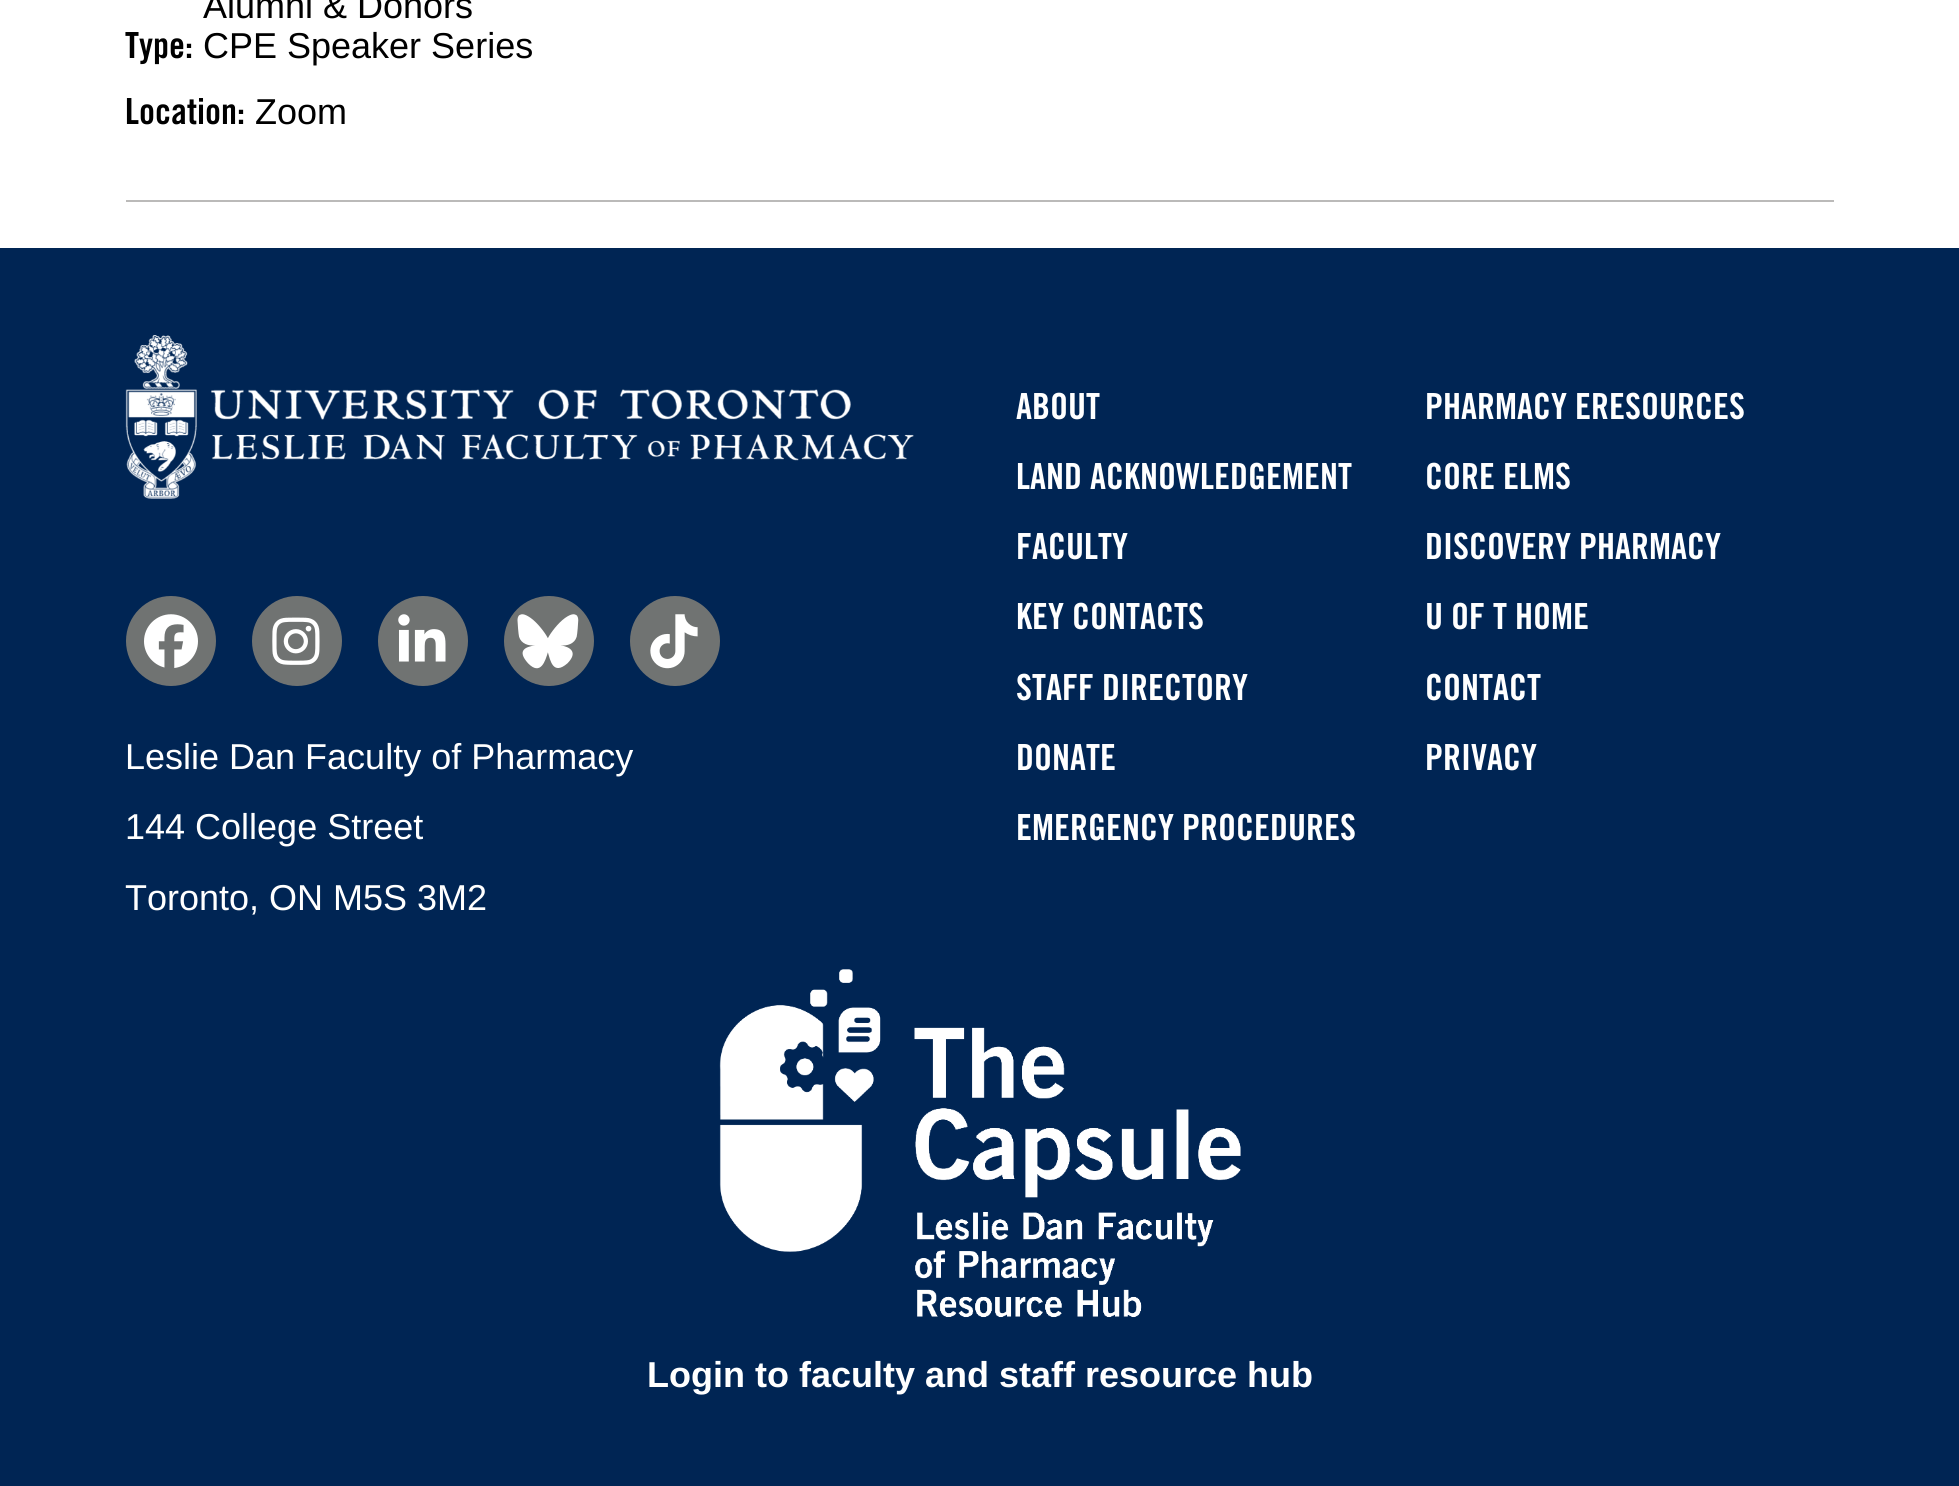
#include <cairo.h>
#include <math.h>
#include <stddef.h>

typedef struct { const char *family; double size; int italic, bold; unsigned color; } style_t;
static cairo_t *ctx;

static void ink(unsigned color) {
    cairo_set_source_rgb(ctx, (color >> 16) / 255.0, (color >> 8 & 255) / 255.0, (color & 255) / 255.0);
}

static void write(double x, double y, const char *s, const style_t *st) {
    cairo_select_font_face(ctx, st->family, st->italic ? CAIRO_FONT_SLANT_ITALIC : CAIRO_FONT_SLANT_NORMAL,
        st->bold ? CAIRO_FONT_WEIGHT_BOLD : CAIRO_FONT_WEIGHT_NORMAL);
    cairo_set_font_size(ctx, st->size);
    ink(st->color);
    cairo_move_to(ctx, x, y);
    cairo_show_text(ctx, s);
}

static void block(double x, double y, double w, double h, unsigned color) {
    ink(color);
    cairo_rectangle(ctx, x, y, w, h);
    cairo_fill(ctx);
}

static void paste(const char *path, double x, double y, double w, double h) {
    cairo_surface_t *image = cairo_image_surface_create_from_png(path);
    cairo_save(ctx);
    cairo_set_source_surface(ctx, image, x, y);
    cairo_rectangle(ctx, x, y, w, h);
    cairo_fill(ctx);
    cairo_restore(ctx);
    cairo_surface_destroy(image);
}

static const style_t s1 = {"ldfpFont", 36, 0, 1, 0x000000};
static const style_t s2 = {"Liberation Sans", 36, 0, 0, 0x000000};
static const style_t s3 = {"Liberation Sans", 36, 0, 0, 0xffffff};
static const style_t s4 = {"ldfpFont", 36, 0, 1, 0xffffff};
static const style_t s5 = {"Liberation Sans", 36, 0, 1, 0xffffff};

int main(void) {
    cairo_surface_t *surface = cairo_image_surface_create(CAIRO_FORMAT_RGB24, 1959, 1486);
    ctx = cairo_create(surface);
    cairo_font_options_t *options = cairo_font_options_create();
    cairo_font_options_set_hint_metrics(options, CAIRO_HINT_METRICS_OFF);
    cairo_font_options_set_hint_style(options, CAIRO_HINT_STYLE_NONE);
    cairo_set_font_options(ctx, options);
    cairo_set_miter_limit(ctx, 4);
    ink(0x002554);
    cairo_paint(ctx);
    block(0, 0, 1959, 248, 0xffffff);
    block(126, 200, 1708, 2, 0xbbbab9);
    write(125, 58, "Type:", &s1);
    write(203, 18, "Alumni & Donors", &s2);
    write(203, 58, "CPE Speaker Series", &s2);
    write(125, 124, "Location:", &s1);
    write(255, 124, "Zoom", &s2);
    paste("pic1.png", 125, 335, 789, 164);
    ink(0x707372);
    cairo_arc(ctx, 171, 641, 45, 0, 2 * M_PI);
    cairo_fill(ctx);
    paste("pic2.png", 144, 614, 54, 54);
    cairo_arc(ctx, 297, 641, 45, 0, 2 * M_PI);
    cairo_fill(ctx);
    paste("pic3.png", 272, 617, 48, 48);
    cairo_arc(ctx, 423, 641, 45, 0, 2 * M_PI);
    cairo_fill(ctx);
    paste("pic4.png", 398, 614, 48, 48);
    cairo_arc(ctx, 549, 641, 45, 0, 2 * M_PI);
    cairo_fill(ctx);
    paste("pic5.png", 517, 614, 62, 55);
    cairo_arc(ctx, 675, 641, 45, 0, 2 * M_PI);
    cairo_fill(ctx);
    paste("pic6.png", 650, 614, 48, 55);
    write(125, 769, "Leslie Dan Faculty of Pharmacy", &s3);
    write(125, 839, "144 College Street", &s3);
    write(125, 910, "Toronto, ON M5S 3M2", &s3);
    write(1016, 419, "ABOUT", &s4);
    write(1425, 419, "PHARMACY ERESOURCES", &s4);
    write(1016, 489, "LAND ACKNOWLEDGEMENT", &s4);
    write(1425, 489, "CORE ELMS", &s4);
    write(1016, 559, "FACULTY", &s4);
    write(1425, 559, "DISCOVERY PHARMACY", &s4);
    write(1016, 629, "KEY CONTACTS", &s4);
    write(1425, 629, "U OF T HOME", &s4);
    write(1016, 700, "STAFF DIRECTORY", &s4);
    write(1425, 700, "CONTACT", &s4);
    write(1016, 770, "DONATE", &s4);
    write(1425, 770, "PRIVACY", &s4);
    write(1016, 840, "EMERGENCY PROCEDURES", &s4);
    paste("pic7.png", 719, 969, 522, 349);
    write(647, 1387, "Login to faculty and staff resource hub", &s5);
    cairo_surface_write_to_png(surface, "screenshot.png");
    cairo_font_options_destroy(options);
    cairo_destroy(ctx);
    cairo_surface_destroy(surface);
    return 0;
}
